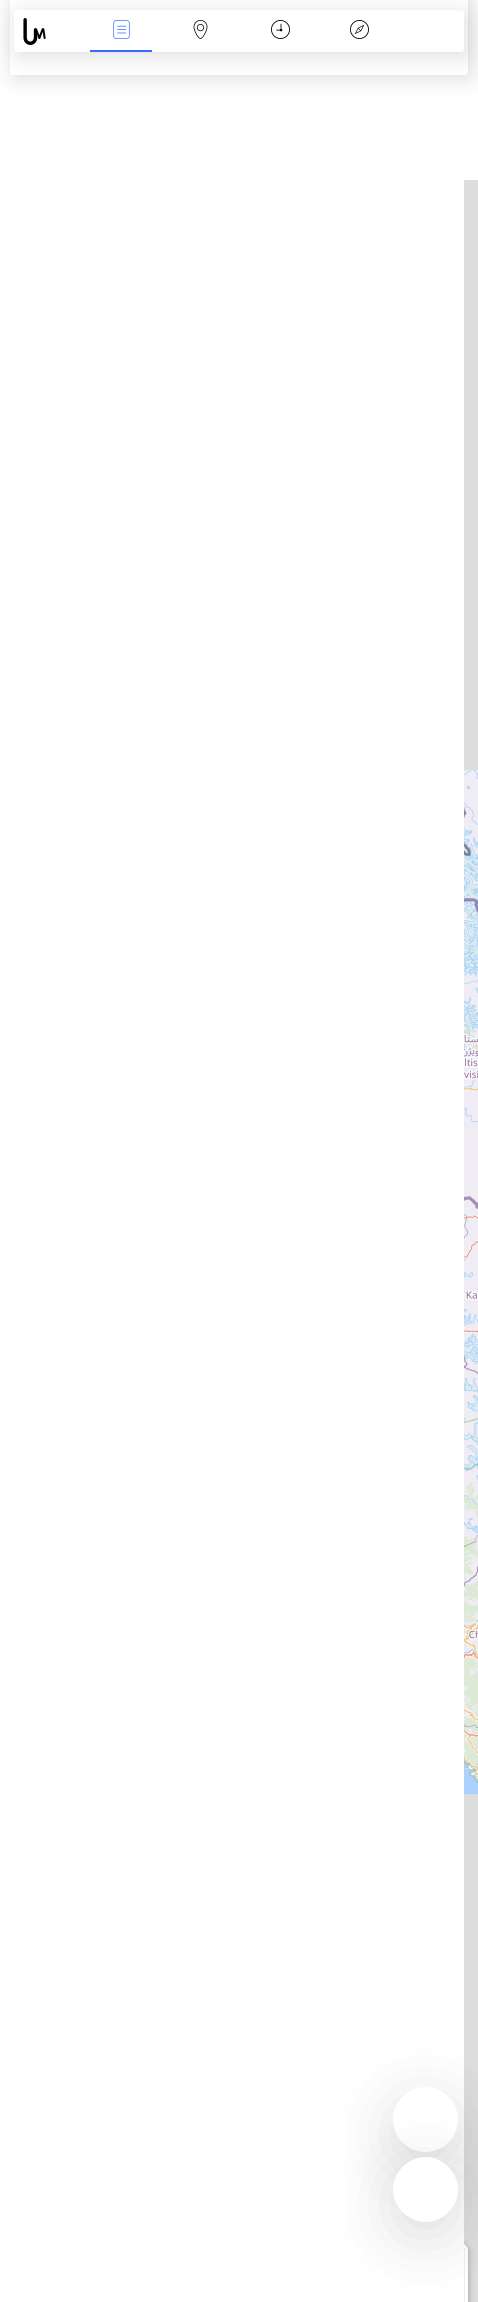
#include <cairo.h>
#include <math.h>
#include <stddef.h>

static cairo_t *ctx;

static void ink(unsigned color) {
    cairo_set_source_rgb(ctx, (color >> 16) / 255.0, (color >> 8 & 255) / 255.0, (color & 255) / 255.0);
}

static void block(double x, double y, double w, double h, unsigned color) {
    ink(color);
    cairo_rectangle(ctx, x, y, w, h);
    cairo_fill(ctx);
}

static void round_path(double x, double y, double w, double h, double r) {
    cairo_new_sub_path(ctx);
    cairo_arc(ctx, x + w - r, y + h - r, r, 0, M_PI / 2);
    cairo_arc(ctx, x + r, y + h - r, r, M_PI / 2, M_PI);
    cairo_arc(ctx, x + r, y + r, r, M_PI, 1.5 * M_PI);
    cairo_arc(ctx, x + w - r, y + r, r, 1.5 * M_PI, 2 * M_PI);
    cairo_close_path(ctx);
}

static void blur_box(double x, double y, double w, double h, double r, double blur, double alpha) {
    cairo_push_group_with_content(ctx, CAIRO_CONTENT_ALPHA);
    cairo_set_operator(ctx, CAIRO_OPERATOR_SOURCE);
    for (int i = 15; i >= -15 && fmin(w, h) + blur * i / 3 > 0; i -= 2) {
        double e = blur * i / 6;
        cairo_set_source_rgba(ctx, 0, 0, 0, alpha * erfc((i - 1) / 8.5) / 2);
        round_path(x - e, y - e, w + 2 * e, h + 2 * e, fmax(0, fmin(r + e + blur * .6, fmin(w, h) / 2 + e)));
        cairo_fill(ctx);
    }
    cairo_pattern_t *soft = cairo_pop_group(ctx);
    cairo_mask(ctx, soft);
    cairo_pattern_destroy(soft);
}

static void paste(const char *path, double x, double y, double w, double h) {
    cairo_surface_t *image = cairo_image_surface_create_from_png(path);
    cairo_save(ctx);
    cairo_set_source_surface(ctx, image, x, y);
    cairo_rectangle(ctx, x, y, w, h);
    cairo_fill(ctx);
    cairo_restore(ctx);
    cairo_surface_destroy(image);
}

int main(void) {
    cairo_surface_t *surface = cairo_image_surface_create(CAIRO_FORMAT_RGB24, 478, 2302);
    ctx = cairo_create(surface);
    cairo_font_options_t *options = cairo_font_options_create();
    cairo_font_options_set_hint_metrics(options, CAIRO_HINT_METRICS_OFF);
    cairo_font_options_set_hint_style(options, CAIRO_HINT_STYLE_NONE);
    cairo_set_font_options(ctx, options);
    cairo_set_miter_limit(ctx, 4);
    ink(0xffffff);
    cairo_paint(ctx);
    ink(0x100f0f);
    blur_box(13, -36, 458, 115, 3, 11, 0.14);
    ink(0xffffff);
    round_path(10, -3, 458, 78, 3);
    cairo_fill(ctx);
    block(464, 180, 14, 2122, 0xdddddd);
    ink(0x999999);
    blur_box(312, 2244, 156, 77, 8, 3.5, 1);
    round_path(313.5, 2244.5, 153, 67, 6.5);
    ink(0xffffff);
    cairo_set_line_width(ctx, 3);
    cairo_stroke(ctx);
    block(305, 2237, 159, 65, 0xffffff);
    ink(0x100f0f);
    blur_box(17, 14, 450, 42, 3, 11, 0.14);
    ink(0xffffff);
    round_path(14, 10, 450, 42, 3);
    cairo_fill(ctx);
    paste("pic1.png", 23, 18, 23, 27);
    block(90, 50, 62, 2, 0x346afe);
    paste("pic2.png", 113, 20, 17, 19);
    paste("pic3.png", 193, 20, 15, 19);
    paste("pic4.png", 271, 20, 19, 19);
    paste("pic5.png", 350, 20, 19, 19);
    paste("pic6.png", 464, 770, 14, 256);
    paste("pic7.png", 464, 1026, 14, 256);
    paste("pic8.png", 464, 1282, 14, 256);
    paste("pic9.png", 464, 1538, 14, 256);
    paste("pic10.png", 464, 2248, 1, 23);
    paste("pic11.png", 464, 2271, 1, 31);
    ink(0x100f0f);
    blur_box(395, 2104, 61, 61, 30.5, 32.5, 0.14);
    ink(0xffffff);
    cairo_arc(ctx, 425.5, 2119.5, 32.5, 0, 2 * M_PI);
    cairo_fill(ctx);
    ink(0x100f0f);
    blur_box(395, 2174, 61, 61, 30.5, 32.5, 0.14);
    ink(0xffffff);
    cairo_new_path(ctx);
    cairo_move_to(ctx, 426, 2222);
    cairo_curve_to(ctx, 408, 2222, 393, 2207, 393, 2190);
    cairo_curve_to(ctx, 393, 2172, 408, 2157, 426, 2157);
    cairo_curve_to(ctx, 443, 2157, 458, 2172, 458, 2190);
    cairo_curve_to(ctx, 458, 2207, 443, 2222, 426, 2222);
    cairo_close_path(ctx);
    cairo_fill(ctx);
    cairo_surface_write_to_png(surface, "screenshot.png");
    cairo_font_options_destroy(options);
    cairo_destroy(ctx);
    cairo_surface_destroy(surface);
    return 0;
}
